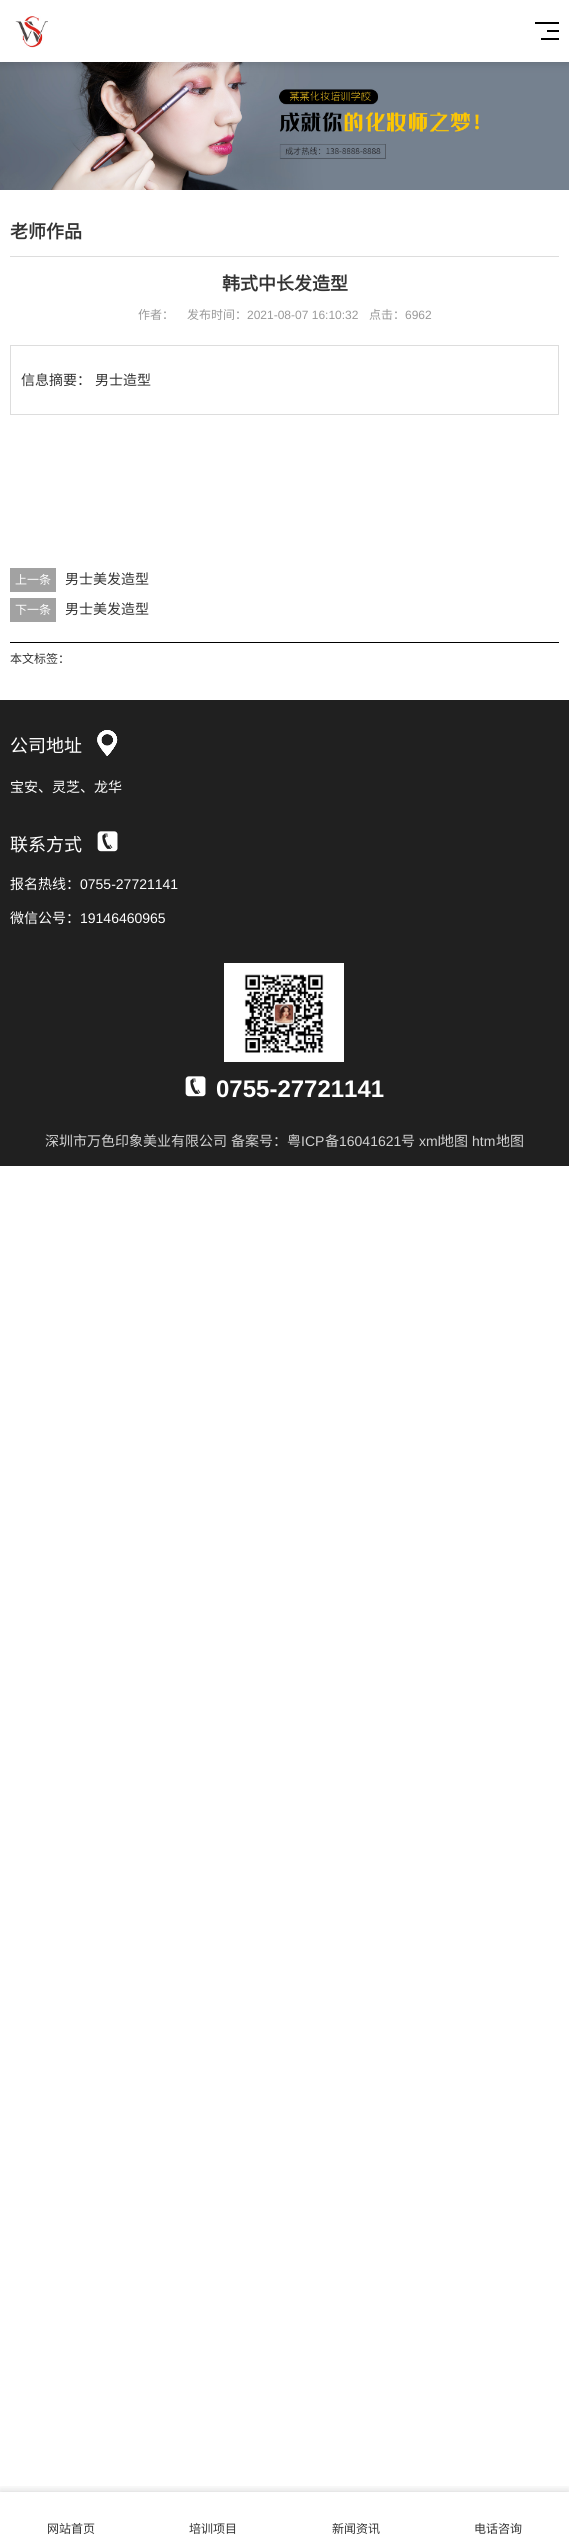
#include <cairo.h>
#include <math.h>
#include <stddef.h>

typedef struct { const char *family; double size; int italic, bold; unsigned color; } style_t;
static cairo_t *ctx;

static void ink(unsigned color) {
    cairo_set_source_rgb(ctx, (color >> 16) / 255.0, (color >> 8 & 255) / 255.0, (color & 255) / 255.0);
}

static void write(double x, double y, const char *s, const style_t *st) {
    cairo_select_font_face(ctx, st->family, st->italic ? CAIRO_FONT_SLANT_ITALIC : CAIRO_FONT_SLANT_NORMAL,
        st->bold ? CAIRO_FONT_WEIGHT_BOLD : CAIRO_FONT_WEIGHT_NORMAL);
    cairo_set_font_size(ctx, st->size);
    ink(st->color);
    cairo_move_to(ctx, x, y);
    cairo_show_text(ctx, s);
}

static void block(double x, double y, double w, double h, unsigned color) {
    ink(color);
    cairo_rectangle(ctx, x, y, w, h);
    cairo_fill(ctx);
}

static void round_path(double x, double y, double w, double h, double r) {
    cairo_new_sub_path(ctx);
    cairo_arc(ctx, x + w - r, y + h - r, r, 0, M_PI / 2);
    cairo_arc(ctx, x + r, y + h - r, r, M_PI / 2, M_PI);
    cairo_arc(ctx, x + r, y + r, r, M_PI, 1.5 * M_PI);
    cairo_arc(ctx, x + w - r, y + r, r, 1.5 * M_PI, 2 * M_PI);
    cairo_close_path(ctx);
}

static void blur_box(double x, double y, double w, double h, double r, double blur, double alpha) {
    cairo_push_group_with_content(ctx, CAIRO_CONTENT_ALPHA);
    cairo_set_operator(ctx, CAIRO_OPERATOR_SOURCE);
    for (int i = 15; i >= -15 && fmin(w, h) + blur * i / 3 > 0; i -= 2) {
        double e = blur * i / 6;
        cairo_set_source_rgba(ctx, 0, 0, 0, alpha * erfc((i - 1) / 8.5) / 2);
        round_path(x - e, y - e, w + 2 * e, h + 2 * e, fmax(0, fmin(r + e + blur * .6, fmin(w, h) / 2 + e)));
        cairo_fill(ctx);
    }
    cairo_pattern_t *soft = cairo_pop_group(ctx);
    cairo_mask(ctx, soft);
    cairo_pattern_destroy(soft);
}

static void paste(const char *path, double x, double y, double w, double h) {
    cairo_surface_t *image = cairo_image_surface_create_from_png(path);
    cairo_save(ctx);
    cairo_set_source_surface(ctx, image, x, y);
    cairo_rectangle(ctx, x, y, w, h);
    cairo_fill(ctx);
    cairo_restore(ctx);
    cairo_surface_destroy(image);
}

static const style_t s1 = {"Noto Sans CJK SC", 18, 0, 1, 0x333333};
static const style_t s2 = {"Noto Sans CJK SC", 12, 0, 0, 0x999999};
static const style_t s3 = {"Liberation Sans", 12, 0, 0, 0x999999};
static const style_t s4 = {"Noto Sans CJK SC", 14, 0, 0, 0x333333};
static const style_t s5 = {"Noto Sans CJK SC", 12, 0, 0, 0xffffff};
static const style_t s6 = {"Noto Sans CJK SC", 12, 0, 0, 0x333333};
static const style_t s7 = {"Noto Sans CJK SC", 18, 0, 0, 0xffffff};
static const style_t s8 = {"Noto Sans CJK SC", 14, 0, 0, 0xffffff};
static const style_t s9 = {"Liberation Sans", 14, 0, 0, 0xffffff};
static const style_t s10 = {"Liberation Sans", 24, 0, 1, 0xffffff};
static const style_t s11 = {"Noto Sans CJK SC", 14, 0, 0, 0xd2d2d2};
static const style_t s12 = {"Liberation Sans", 14, 0, 0, 0xd2d2d2};

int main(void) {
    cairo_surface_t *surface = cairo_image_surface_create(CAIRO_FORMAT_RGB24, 569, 2542);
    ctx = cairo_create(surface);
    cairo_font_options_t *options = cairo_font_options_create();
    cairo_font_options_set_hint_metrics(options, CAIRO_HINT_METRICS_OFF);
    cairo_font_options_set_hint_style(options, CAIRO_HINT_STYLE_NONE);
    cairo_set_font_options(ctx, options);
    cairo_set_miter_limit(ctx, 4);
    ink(0xffffff);
    cairo_paint(ctx);
    paste("pic2.png", 0, 62, 569, 128);
    ink(0x000000);
    blur_box(0, 0, 569, 62, 0, 5, 0.2);
    block(0, 0, 569, 62, 0xffffff);
    paste("pic1.png", 15, 16, 33, 32);
    block(535, 22, 24, 2, 0x000000);
    block(547, 30, 12, 2, 0x000000);
    block(541, 38, 18, 2, 0x000000);
    block(10, 256, 549, 1, 0xdddddd);
    write(10, 238, "老师作品", &s1);
    write(222, 290, "韩式中长发造型", &s1);
    write(138, 319, "作者：", &s2);
    write(187, 319, "发布时间：", &s2);
    write(247, 319, "2021-08-07 16:10:32", &s3);
    write(369, 319, "点击：", &s2);
    write(405, 319, "6962", &s3);
    cairo_rectangle(ctx, 10.5, 345.5, 548, 69);
    ink(0xdddddd);
    cairo_set_line_width(ctx, 1);
    cairo_stroke(ctx);
    write(21, 385, "信息摘要：", &s4);
    write(95, 385, "男士造型", &s4);
    block(10, 568, 46, 24, 0xa2a2a2);
    write(15, 584, "上一条", &s5);
    write(65, 584, "男士美发造型", &s4);
    block(10, 598, 46, 24, 0xa2a2a2);
    write(15, 614, "下一条", &s5);
    write(65, 614, "男士美发造型", &s4);
    block(10, 642, 549, 1, 0x000000);
    write(10, 663, "本文标签：", &s6);
    block(0, 700, 569, 466, 0x202020);
    write(10, 752, "公司地址", &s7);
    paste("pic3.png", 97, 730, 21, 26);
    write(10, 792, "宝安、灵芝、龙华", &s8);
    write(10, 851, "联系方式", &s7);
    paste("pic4.png", 97, 831, 21, 21);
    write(10, 889, "报名热线：", &s8);
    write(80, 889, "0755-27721141", &s9);
    write(10, 923, "微信公号：", &s8);
    write(80, 923, "19146460965", &s9);
    paste("pic5.png", 224, 963, 120, 99);
    paste("pic4.png", 185, 1076, 21, 21);
    write(216, 1097, "0755-27721141", &s10);
    write(45, 1146, "深圳市万色印象美业有限公司", &s11);
    write(231, 1146, "备案号：粤", &s11);
    write(301, 1146, "ICP", &s12);
    write(325, 1146, "备", &s11);
    write(339, 1146, "16041621", &s12);
    write(401, 1146, "号", &s11);
    write(419, 1146, "xml", &s12);
    write(440, 1146, "地图", &s11);
    write(472, 1146, "htm", &s12);
    write(496, 1146, "地图", &s11);
    cairo_save(ctx);
    cairo_rectangle(ctx, 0, 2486, 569, 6);
    cairo_clip(ctx);
    ink(0x000000);
    blur_box(0, 2492, 569, 50, 0, 5, 0.2);
    cairo_restore(ctx);
    write(47, 2533, "网站首页", &s6);
    write(189, 2533, "培训项目", &s6);
    write(332, 2533, "新闻资讯", &s6);
    write(474, 2533, "电话咨询", &s6);
    cairo_surface_write_to_png(surface, "screenshot.png");
    cairo_font_options_destroy(options);
    cairo_destroy(ctx);
    cairo_surface_destroy(surface);
    return 0;
}
